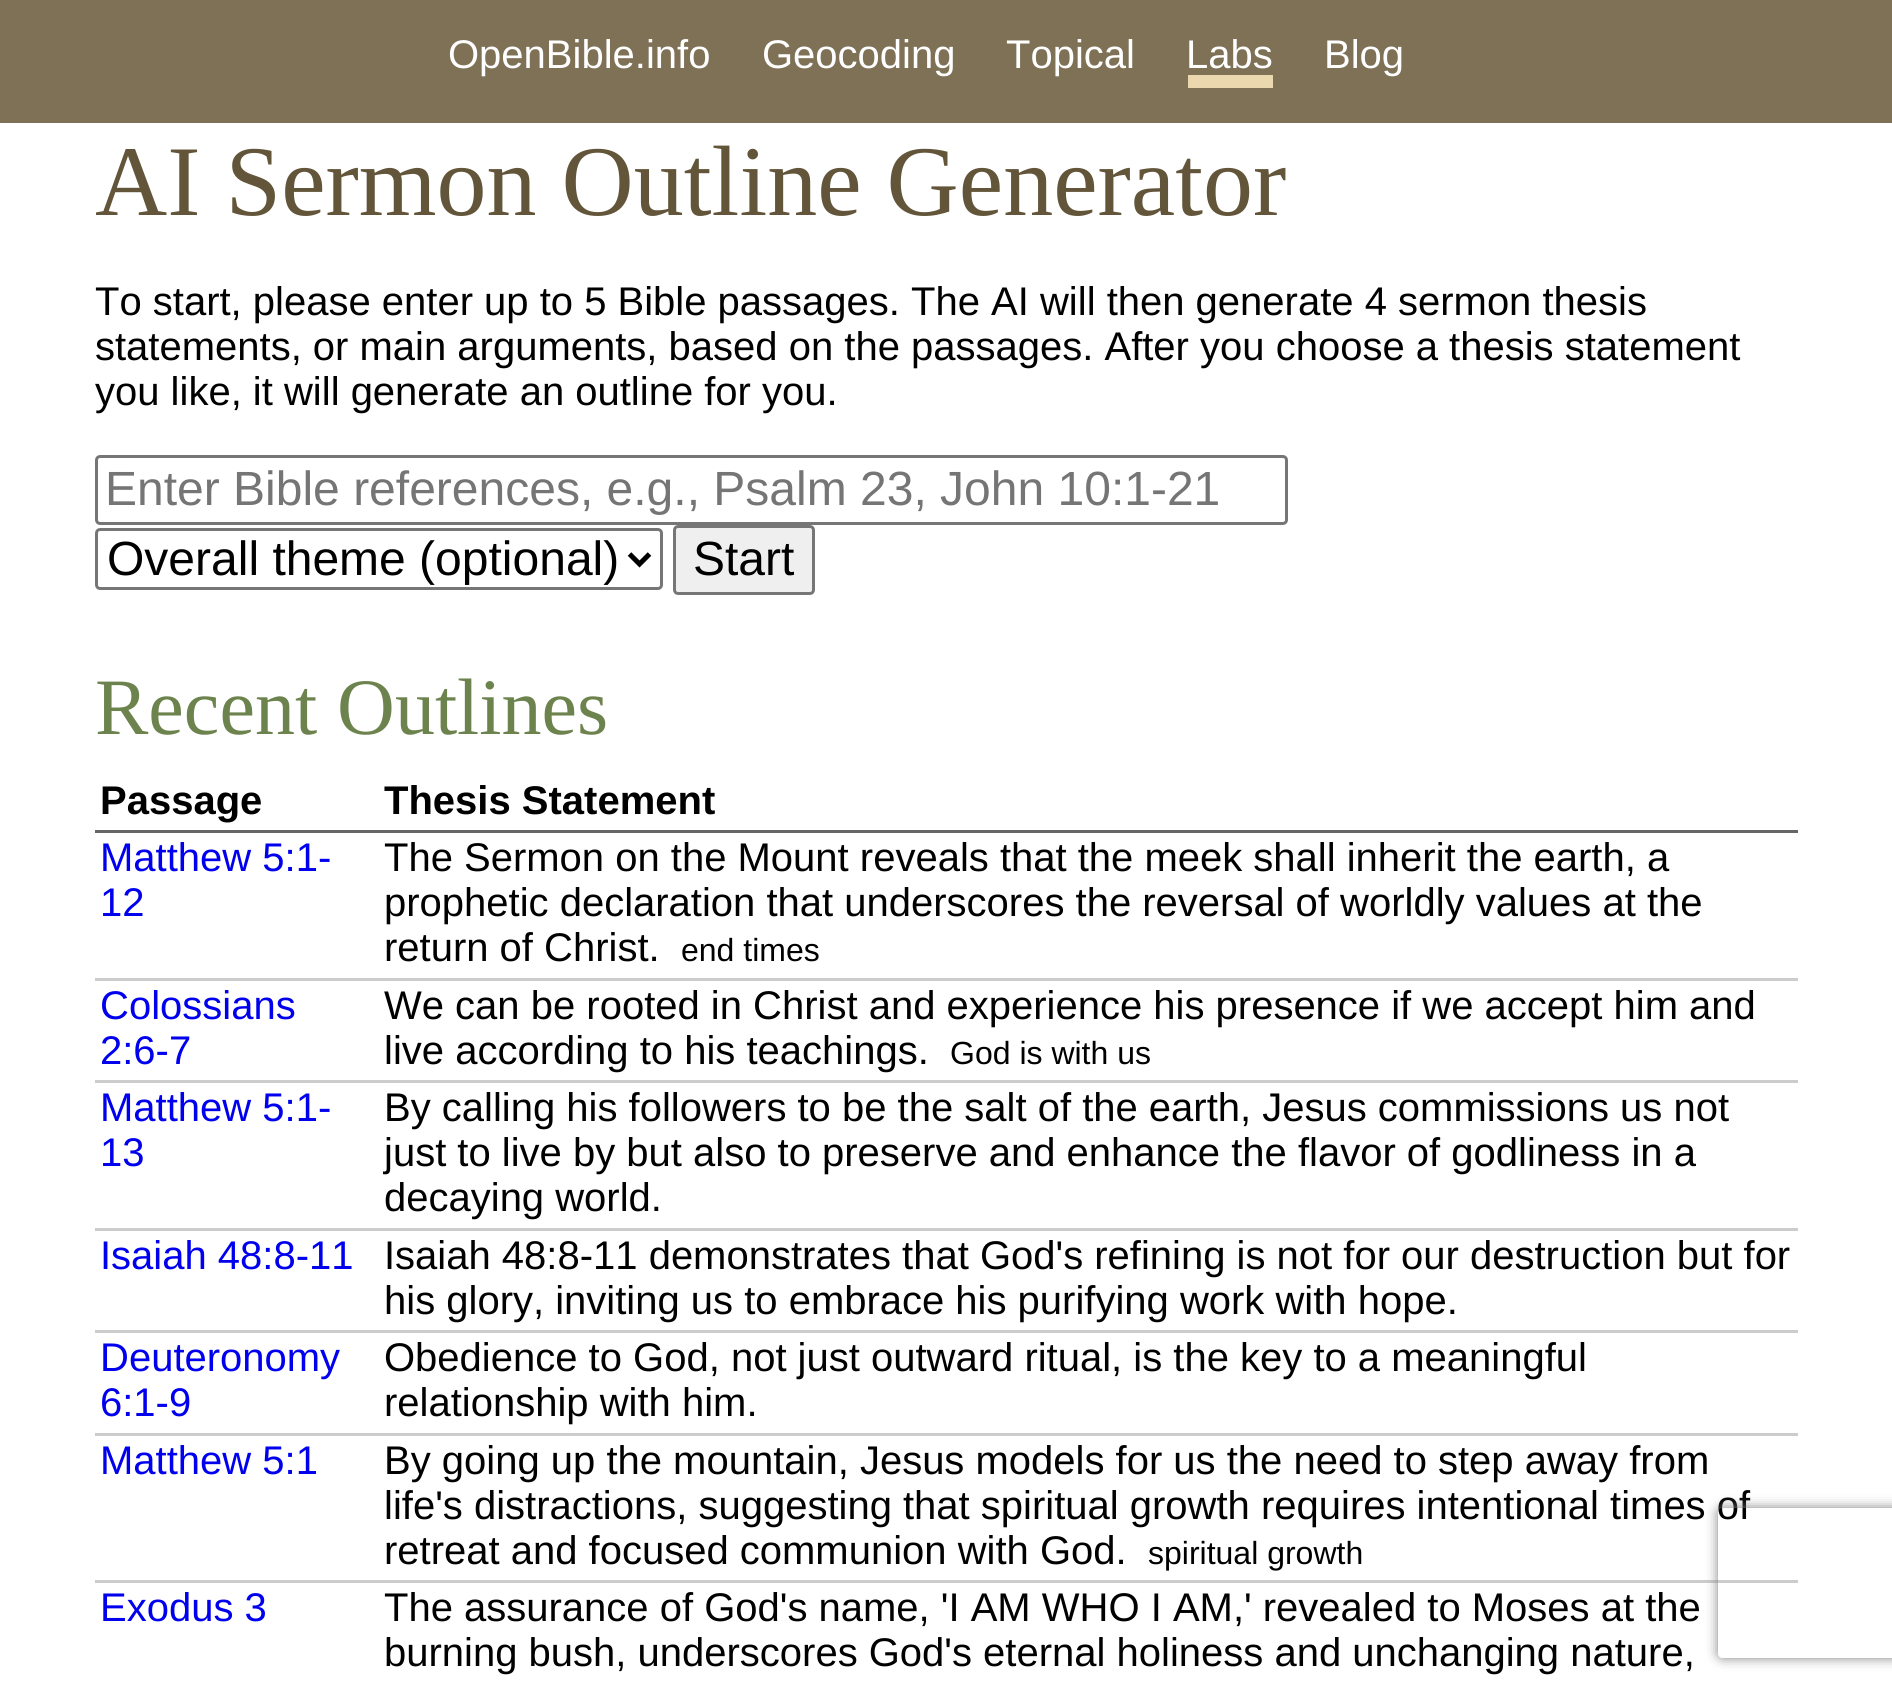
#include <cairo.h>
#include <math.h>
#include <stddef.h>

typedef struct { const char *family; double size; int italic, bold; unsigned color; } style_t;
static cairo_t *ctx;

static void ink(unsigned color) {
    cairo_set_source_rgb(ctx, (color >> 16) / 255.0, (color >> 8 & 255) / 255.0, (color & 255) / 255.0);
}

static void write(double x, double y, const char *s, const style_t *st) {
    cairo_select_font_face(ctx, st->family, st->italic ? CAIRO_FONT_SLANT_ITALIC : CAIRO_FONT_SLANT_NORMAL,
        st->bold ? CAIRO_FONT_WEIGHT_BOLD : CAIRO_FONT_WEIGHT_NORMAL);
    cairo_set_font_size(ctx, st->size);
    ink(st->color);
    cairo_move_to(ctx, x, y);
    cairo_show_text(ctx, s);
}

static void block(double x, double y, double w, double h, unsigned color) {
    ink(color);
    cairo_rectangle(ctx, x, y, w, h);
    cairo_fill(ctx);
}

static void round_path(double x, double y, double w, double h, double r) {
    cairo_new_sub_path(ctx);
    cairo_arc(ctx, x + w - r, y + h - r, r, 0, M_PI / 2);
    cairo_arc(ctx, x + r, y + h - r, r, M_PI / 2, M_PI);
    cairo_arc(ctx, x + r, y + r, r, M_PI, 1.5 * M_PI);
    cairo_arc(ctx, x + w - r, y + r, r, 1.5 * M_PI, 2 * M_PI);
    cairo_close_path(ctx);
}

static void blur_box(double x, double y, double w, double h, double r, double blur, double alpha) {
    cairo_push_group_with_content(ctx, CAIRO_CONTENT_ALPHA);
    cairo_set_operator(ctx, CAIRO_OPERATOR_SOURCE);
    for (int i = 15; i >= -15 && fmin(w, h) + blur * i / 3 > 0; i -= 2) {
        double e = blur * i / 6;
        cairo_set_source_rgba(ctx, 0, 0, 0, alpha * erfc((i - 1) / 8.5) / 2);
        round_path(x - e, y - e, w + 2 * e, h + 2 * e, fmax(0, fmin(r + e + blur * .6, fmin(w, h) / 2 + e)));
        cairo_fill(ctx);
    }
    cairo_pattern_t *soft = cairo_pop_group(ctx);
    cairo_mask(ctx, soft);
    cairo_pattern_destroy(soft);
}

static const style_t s1 = {"Liberation Sans", 40, 0, 0, 0xffffff};
static const style_t s2 = {"Liberation Serif", 100, 0, 0, 0x625539};
static const style_t s3 = {"Liberation Sans", 40, 0, 0, 0x000000};
static const style_t s4 = {"Liberation Sans", 48, 0, 0, 0x757575};
static const style_t s5 = {"Liberation Sans", 48, 0, 0, 0x000000};
static const style_t s6 = {"Liberation Serif", 80, 0, 0, 0x6d834e};
static const style_t s7 = {"Liberation Sans", 40, 0, 1, 0x000000};
static const style_t s8 = {"Liberation Sans", 40, 0, 0, 0x0000ee};
static const style_t s9 = {"Liberation Sans", 32, 0, 0, 0x000000};

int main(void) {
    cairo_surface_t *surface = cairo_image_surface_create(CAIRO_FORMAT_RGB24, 1892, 1691);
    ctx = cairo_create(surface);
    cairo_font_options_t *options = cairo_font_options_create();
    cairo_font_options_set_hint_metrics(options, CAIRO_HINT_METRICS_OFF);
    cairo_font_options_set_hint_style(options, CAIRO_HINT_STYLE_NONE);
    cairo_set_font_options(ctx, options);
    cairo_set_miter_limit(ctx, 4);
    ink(0xffffff);
    cairo_paint(ctx);
    block(0, 0, 1892, 123, 0x7e7156);
    write(448, 68, "OpenBible.info", &s1);
    write(762, 68, "Geocoding", &s1);
    write(1006, 68, "Topical", &s1);
    write(1186, 68, "Labs", &s1);
    block(1188, 75, 85, 13, 0xebd8af);
    write(1324, 68, "Blog", &s1);
    write(95, 215, "AI Sermon Outline Generator", &s2);
    write(95, 315, "To start, please enter up to 5 Bible passages. The AI will then generate 4 sermon thesis", &s3);
    write(95, 360, "statements, or main arguments, based on the passages. After you choose a thesis statement", &s3);
    write(95, 405, "you like, it will generate an outline for you.", &s3);
    round_path(96.5, 456.5, 1190, 67, 3.5);
    ink(0x767676);
    cairo_set_line_width(ctx, 3);
    cairo_stroke(ctx);
    write(105, 505, "Enter Bible references, e.g., Psalm 23, John 10:1-21", &s4);
    round_path(96.5, 529.5, 565, 59, 3.5);
    ink(0x767676);
    cairo_stroke(ctx);
    cairo_new_path(ctx);
    cairo_move_to(ctx, 629.5, 554);
    cairo_line_to(ctx, 639.5, 564);
    cairo_line_to(ctx, 649.5, 554);
    ink(0x000000);
    cairo_set_line_width(ctx, 5);
    cairo_stroke(ctx);
    write(107, 575, "Overall theme (optional)", &s5);
    ink(0xefefef);
    round_path(674.5, 526.5, 139, 67, 3.5);
    cairo_fill_preserve(ctx);
    ink(0x767676);
    cairo_set_line_width(ctx, 3);
    cairo_stroke(ctx);
    write(693, 575, "Start", &s5);
    write(95, 734, "Recent Outlines", &s6);
    block(95, 830, 1703, 3, 0x666666);
    write(100, 814, "Passage", &s7);
    write(384, 814, "Thesis Statement", &s7);
    block(95, 978, 1703, 3, 0xcccccc);
    write(100, 871, "Matthew 5:1-", &s8);
    write(100, 916, "12", &s8);
    write(384, 871, "The Sermon on the Mount reveals that the meek shall inherit the earth, a", &s3);
    write(384, 916, "prophetic declaration that underscores the reversal of worldly values at the", &s3);
    write(384, 961, "return of Christ.", &s3);
    write(681, 961, "end times", &s9);
    block(95, 1080, 1703, 3, 0xcccccc);
    write(100, 1019, "Colossians", &s8);
    write(100, 1064, "2:6-7", &s8);
    write(384, 1019, "We can be rooted in Christ and experience his presence if we accept him and", &s3);
    write(384, 1064, "live according to his teachings.", &s3);
    write(950, 1064, "God is with us", &s9);
    block(95, 1228, 1703, 3, 0xcccccc);
    write(100, 1121, "Matthew 5:1-", &s8);
    write(100, 1166, "13", &s8);
    write(384, 1121, "By calling his followers to be the salt of the earth, Jesus commissions us not", &s3);
    write(384, 1166, "just to live by but also to preserve and enhance the flavor of godliness in a", &s3);
    write(384, 1211, "decaying world.", &s3);
    block(95, 1330, 1703, 3, 0xcccccc);
    write(100, 1269, "Isaiah 48:8-11", &s8);
    write(384, 1269, "Isaiah 48:8-11 demonstrates that God's refining is not for our destruction but for", &s3);
    write(384, 1314, "his glory, inviting us to embrace his purifying work with hope.", &s3);
    block(95, 1433, 1703, 3, 0xcccccc);
    write(100, 1371, "Deuteronomy", &s8);
    write(100, 1416, "6:1-9", &s8);
    write(384, 1371, "Obedience to God, not just outward ritual, is the key to a meaningful", &s3);
    write(384, 1416, "relationship with him.", &s3);
    block(95, 1580, 1703, 3, 0xcccccc);
    write(100, 1474, "Matthew 5:1", &s8);
    write(384, 1474, "By going up the mountain, Jesus models for us the need to step away from", &s3);
    write(384, 1519, "life's distractions, suggesting that spiritual growth requires intentional times of", &s3);
    write(384, 1564, "retreat and focused communion with God.", &s3);
    write(1148, 1564, "spiritual growth", &s9);
    write(100, 1621, "Exodus 3", &s8);
    write(384, 1621, "The assurance of God's name, 'I AM WHO I AM,' revealed to Moses at the", &s3);
    write(384, 1666, "burning bush, underscores God's eternal holiness and unchanging nature,", &s3);
    cairo_save(ctx);
    cairo_set_fill_rule(ctx, CAIRO_FILL_RULE_EVEN_ODD);
    cairo_new_path(ctx);
    cairo_move_to(ctx, 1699, 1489);
    cairo_line_to(ctx, 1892, 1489);
    cairo_line_to(ctx, 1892, 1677);
    cairo_line_to(ctx, 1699, 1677);
    cairo_close_path(ctx);
    cairo_move_to(ctx, 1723, 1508);
    cairo_line_to(ctx, 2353, 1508);
    cairo_curve_to(ctx, 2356, 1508, 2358, 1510, 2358, 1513);
    cairo_line_to(ctx, 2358, 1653);
    cairo_curve_to(ctx, 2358, 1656, 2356, 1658, 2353, 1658);
    cairo_line_to(ctx, 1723, 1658);
    cairo_curve_to(ctx, 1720, 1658, 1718, 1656, 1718, 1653);
    cairo_line_to(ctx, 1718, 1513);
    cairo_curve_to(ctx, 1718, 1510, 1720, 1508, 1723, 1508);
    cairo_close_path(ctx);
    cairo_clip(ctx);
    ink(0x808080);
    blur_box(1718, 1508, 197, 150, 5, 6, 1);
    cairo_restore(ctx);
    cairo_surface_write_to_png(surface, "screenshot.png");
    cairo_font_options_destroy(options);
    cairo_destroy(ctx);
    cairo_surface_destroy(surface);
    return 0;
}
